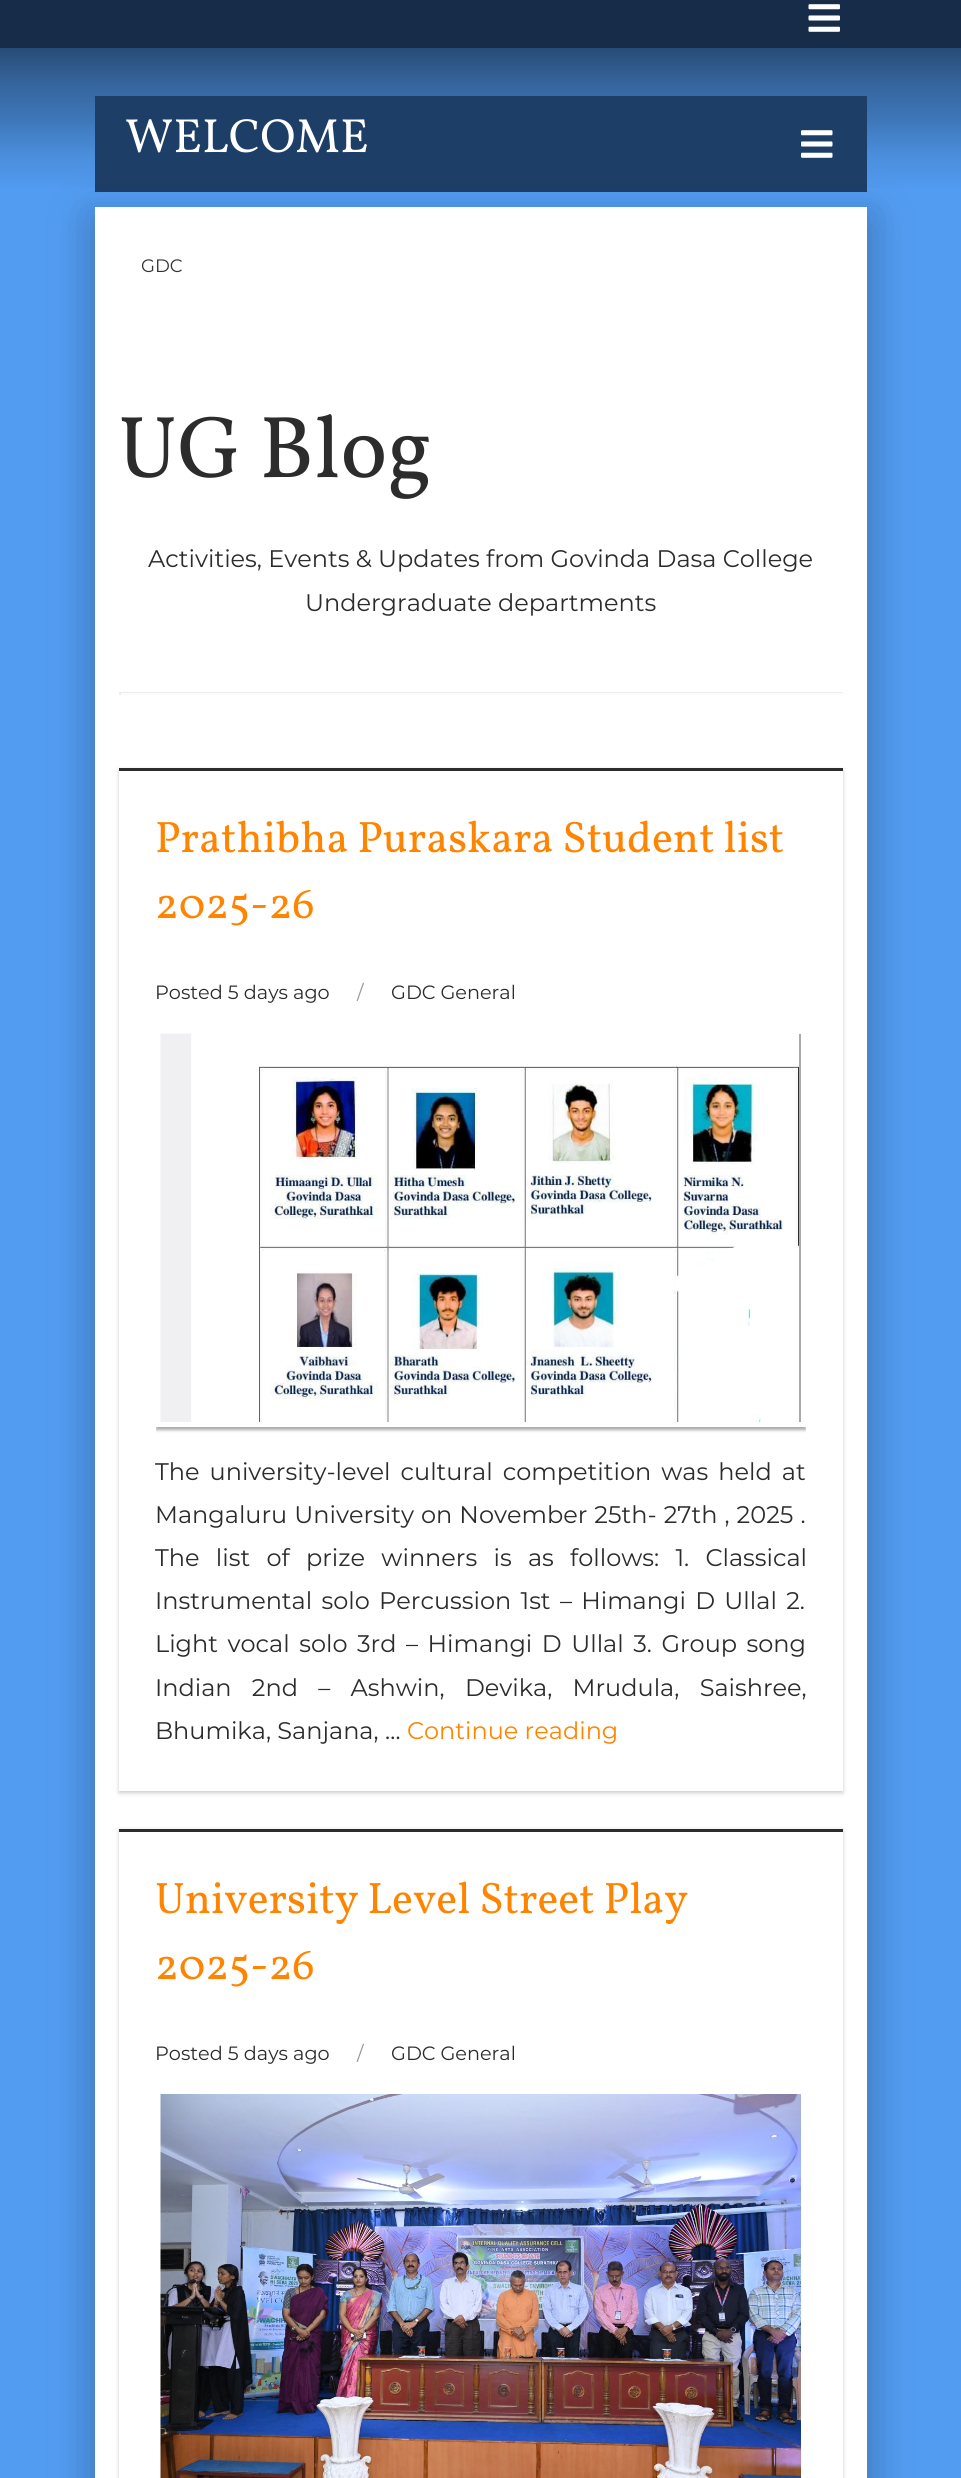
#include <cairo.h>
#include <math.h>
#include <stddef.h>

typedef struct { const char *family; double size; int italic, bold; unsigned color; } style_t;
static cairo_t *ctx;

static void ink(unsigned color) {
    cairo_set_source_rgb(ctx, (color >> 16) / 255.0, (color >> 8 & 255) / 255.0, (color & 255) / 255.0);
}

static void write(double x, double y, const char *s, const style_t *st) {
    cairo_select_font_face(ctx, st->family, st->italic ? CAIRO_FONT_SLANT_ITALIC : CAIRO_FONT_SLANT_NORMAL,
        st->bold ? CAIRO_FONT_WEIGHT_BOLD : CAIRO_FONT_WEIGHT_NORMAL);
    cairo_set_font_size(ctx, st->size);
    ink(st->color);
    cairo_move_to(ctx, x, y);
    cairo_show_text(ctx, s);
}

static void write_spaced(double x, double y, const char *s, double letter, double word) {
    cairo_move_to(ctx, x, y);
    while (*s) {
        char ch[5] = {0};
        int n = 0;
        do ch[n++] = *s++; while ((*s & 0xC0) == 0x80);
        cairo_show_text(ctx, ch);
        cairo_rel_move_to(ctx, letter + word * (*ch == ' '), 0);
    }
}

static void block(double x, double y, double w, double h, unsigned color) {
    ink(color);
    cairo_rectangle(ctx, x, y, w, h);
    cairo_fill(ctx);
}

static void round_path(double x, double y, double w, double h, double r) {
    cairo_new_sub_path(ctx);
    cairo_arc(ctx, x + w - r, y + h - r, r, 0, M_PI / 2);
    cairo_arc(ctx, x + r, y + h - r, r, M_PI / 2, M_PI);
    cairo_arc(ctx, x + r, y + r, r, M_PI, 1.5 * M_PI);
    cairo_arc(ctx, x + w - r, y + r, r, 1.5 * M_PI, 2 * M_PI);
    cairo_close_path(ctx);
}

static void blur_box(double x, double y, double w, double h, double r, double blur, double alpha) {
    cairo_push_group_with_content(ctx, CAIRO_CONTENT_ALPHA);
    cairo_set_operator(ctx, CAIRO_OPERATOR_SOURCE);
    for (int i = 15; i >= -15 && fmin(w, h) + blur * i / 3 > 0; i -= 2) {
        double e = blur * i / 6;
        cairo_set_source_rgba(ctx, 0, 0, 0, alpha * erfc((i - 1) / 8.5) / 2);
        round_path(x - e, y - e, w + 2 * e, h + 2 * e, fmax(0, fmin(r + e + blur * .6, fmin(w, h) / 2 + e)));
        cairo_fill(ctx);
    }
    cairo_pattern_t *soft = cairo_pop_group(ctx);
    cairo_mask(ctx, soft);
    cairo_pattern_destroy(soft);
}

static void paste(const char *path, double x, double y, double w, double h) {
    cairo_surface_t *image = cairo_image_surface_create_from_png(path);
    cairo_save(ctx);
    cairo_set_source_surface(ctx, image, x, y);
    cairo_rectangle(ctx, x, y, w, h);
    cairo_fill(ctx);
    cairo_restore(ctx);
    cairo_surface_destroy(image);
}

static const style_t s1 = {"Vollkorn", 48, 0, 0, 0xffffff};
static const style_t s2 = {"Montserrat", 18, 0, 0, 0x333333};
static const style_t s3 = {"Vollkorn", 88, 0, 0, 0x2c2c2c};
static const style_t s4 = {"Montserrat", 24, 0, 0, 0x2c2c2c};
static const style_t s5 = {"Vollkorn", 44.1, 0, 0, 0xff8400};
static const style_t s6 = {"Montserrat", 19.25, 0, 0, 0x2c2c2c};
static const style_t s7 = {"Montserrat", 19.25, 0, 0, 0x969696};
static const style_t s8 = {"Montserrat", 24, 0, 0, 0xff8400};

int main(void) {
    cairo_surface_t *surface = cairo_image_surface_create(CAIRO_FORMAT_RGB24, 961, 2478);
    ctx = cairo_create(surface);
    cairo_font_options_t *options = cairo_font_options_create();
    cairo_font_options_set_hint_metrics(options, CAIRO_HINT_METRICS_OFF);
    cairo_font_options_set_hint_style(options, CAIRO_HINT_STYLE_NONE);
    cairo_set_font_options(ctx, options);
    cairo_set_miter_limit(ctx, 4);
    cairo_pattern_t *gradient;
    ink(0x529cf2);
    cairo_paint(ctx);
    block(0, 0, 961, 48, 0x162c48);
    paste("pic1.png", 808, 4, 32, 28);
    gradient = cairo_pattern_create_linear(481, 48, 481, 192);
    cairo_pattern_add_color_stop_rgba(gradient, 0, 0.157, 0.298, 0.467, 1);
    cairo_pattern_add_color_stop_rgba(gradient, 0.25, 0.208, 0.396, 0.616, 1);
    cairo_pattern_add_color_stop_rgba(gradient, 0.5, 0.243, 0.467, 0.722, 1);
    cairo_pattern_add_color_stop_rgba(gradient, 0.75, 0.294, 0.557, 0.863, 1);
    cairo_pattern_add_color_stop_rgba(gradient, 1, 0.322, 0.612, 0.949, 1);
    cairo_set_source(ctx, gradient);
    cairo_pattern_destroy(gradient);
    cairo_rectangle(ctx, 0, 48, 961, 140);
    cairo_fill(ctx);
    block(95, 96, 772, 96, 0x1d3e67);
    ink(0x000000);
    blur_box(87, 209, 788, 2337, 0, 22.5, 0.12);
    write(125, 152, "WELCOME", &s1);
    paste("pic2.png", 801, 130, 32, 28);
    ink(0x000000);
    blur_box(92, 228, 778, 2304, 0, 18, 0.14);
    block(95, 207, 772, 2271, 0xffffff);
    write(141, 272, "GDC", &s2);
    write(118, 477, "UG Blog", &s3);
    write(148, 567, "Activities, Events & Updates from Govinda Dasa College", &s4);
    write(305, 611, "Undergraduate departments", &s4);
    block(119, 692, 724, 1, 0xececec);
    block(842, 692, 2, 3, 0xfcfcfc);
    block(119, 693, 724, 2, 0xfcfcfc);
    block(119, 692, 2, 3, 0xececec);
    cairo_save(ctx);
    cairo_set_fill_rule(ctx, CAIRO_FILL_RULE_EVEN_ODD);
    cairo_new_path(ctx);
    cairo_move_to(ctx, 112, 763);
    cairo_line_to(ctx, 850, 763);
    cairo_line_to(ctx, 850, 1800);
    cairo_line_to(ctx, 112, 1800);
    cairo_close_path(ctx);
    cairo_move_to(ctx, 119, 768);
    cairo_line_to(ctx, 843, 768);
    cairo_line_to(ctx, 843, 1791);
    cairo_line_to(ctx, 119, 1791);
    cairo_close_path(ctx);
    cairo_clip(ctx);
    ink(0xcccccc);
    blur_box(119, 770, 724, 1023, 0, 2, 1);
    cairo_restore(ctx);
    block(119, 768, 724, 3, 0x2c2c2c);
    write(155, 852, "Prathibha Puraskara Student list", &s5);
    write(155, 918, "2025-26", &s5);
    write(155, 999, "Posted 5 days ago", &s6);
    write(357, 999, "/", &s7);
    write(391, 999, "GDC General", &s6);
    cairo_save(ctx);
    cairo_rectangle(ctx, 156, 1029, 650, 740);
    cairo_clip(ctx);
    ink(0xaaaaaa);
    blur_box(156, 1032, 650, 398, 0, 1.5, 1);
    cairo_restore(ctx);
    cairo_rectangle(ctx, 158.5, 1031.5, 645, 393);
    ink(0xffffff);
    cairo_set_line_width(ctx, 5);
    cairo_stroke(ctx);
    paste("pic3.png", 160, 1033, 639, 389);
    cairo_set_font_size(ctx, 24);
    ink(0x2c2c2c);
    write_spaced(155, 1480, "The university-level cultural competition was held at", 0, 3.75);
    write_spaced(155, 1523, "Mangaluru University on November 25th- 27th , 2025 .", 0, 0.75);
    write_spaced(155, 1566, "The list of prize winners is as follows: 1. Classical", 0, 10);
    write_spaced(155, 1609, "Instrumental solo Percussion 1st – Himangi D Ullal 2.", 0, 3);
    write_spaced(155, 1652, "Light vocal solo 3rd – Himangi D Ullal 3. Group song", 0, 3.25);
    write_spaced(155, 1696, "Indian 2nd – Ashwin, Devika, Mrudula, Saishree,", 0, 14);
    write(155, 1739, "Bhumika, Sanjana, …", &s4);
    write(407, 1739, "Continue reading", &s8);
    cairo_save(ctx);
    cairo_set_fill_rule(ctx, CAIRO_FILL_RULE_EVEN_ODD);
    cairo_new_path(ctx);
    cairo_move_to(ctx, 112, 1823);
    cairo_line_to(ctx, 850, 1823);
    cairo_line_to(ctx, 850, 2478);
    cairo_line_to(ctx, 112, 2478);
    cairo_close_path(ctx);
    cairo_move_to(ctx, 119, 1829);
    cairo_line_to(ctx, 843, 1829);
    cairo_line_to(ctx, 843, 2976);
    cairo_line_to(ctx, 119, 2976);
    cairo_close_path(ctx);
    cairo_clip(ctx);
    ink(0xcccccc);
    blur_box(119, 1830, 724, 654, 0, 2, 1);
    cairo_restore(ctx);
    block(119, 1829, 724, 3, 0x2c2c2c);
    write(155, 1913, "University Level Street Play", &s5);
    write(155, 1979, "2025-26", &s5);
    write(155, 2060, "Posted 5 days ago", &s6);
    write(357, 2060, "/", &s7);
    write(391, 2060, "GDC General", &s6);
    paste("pic4.png", 160, 2094, 641, 384);
    cairo_surface_write_to_png(surface, "screenshot.png");
    cairo_font_options_destroy(options);
    cairo_destroy(ctx);
    cairo_surface_destroy(surface);
    return 0;
}
